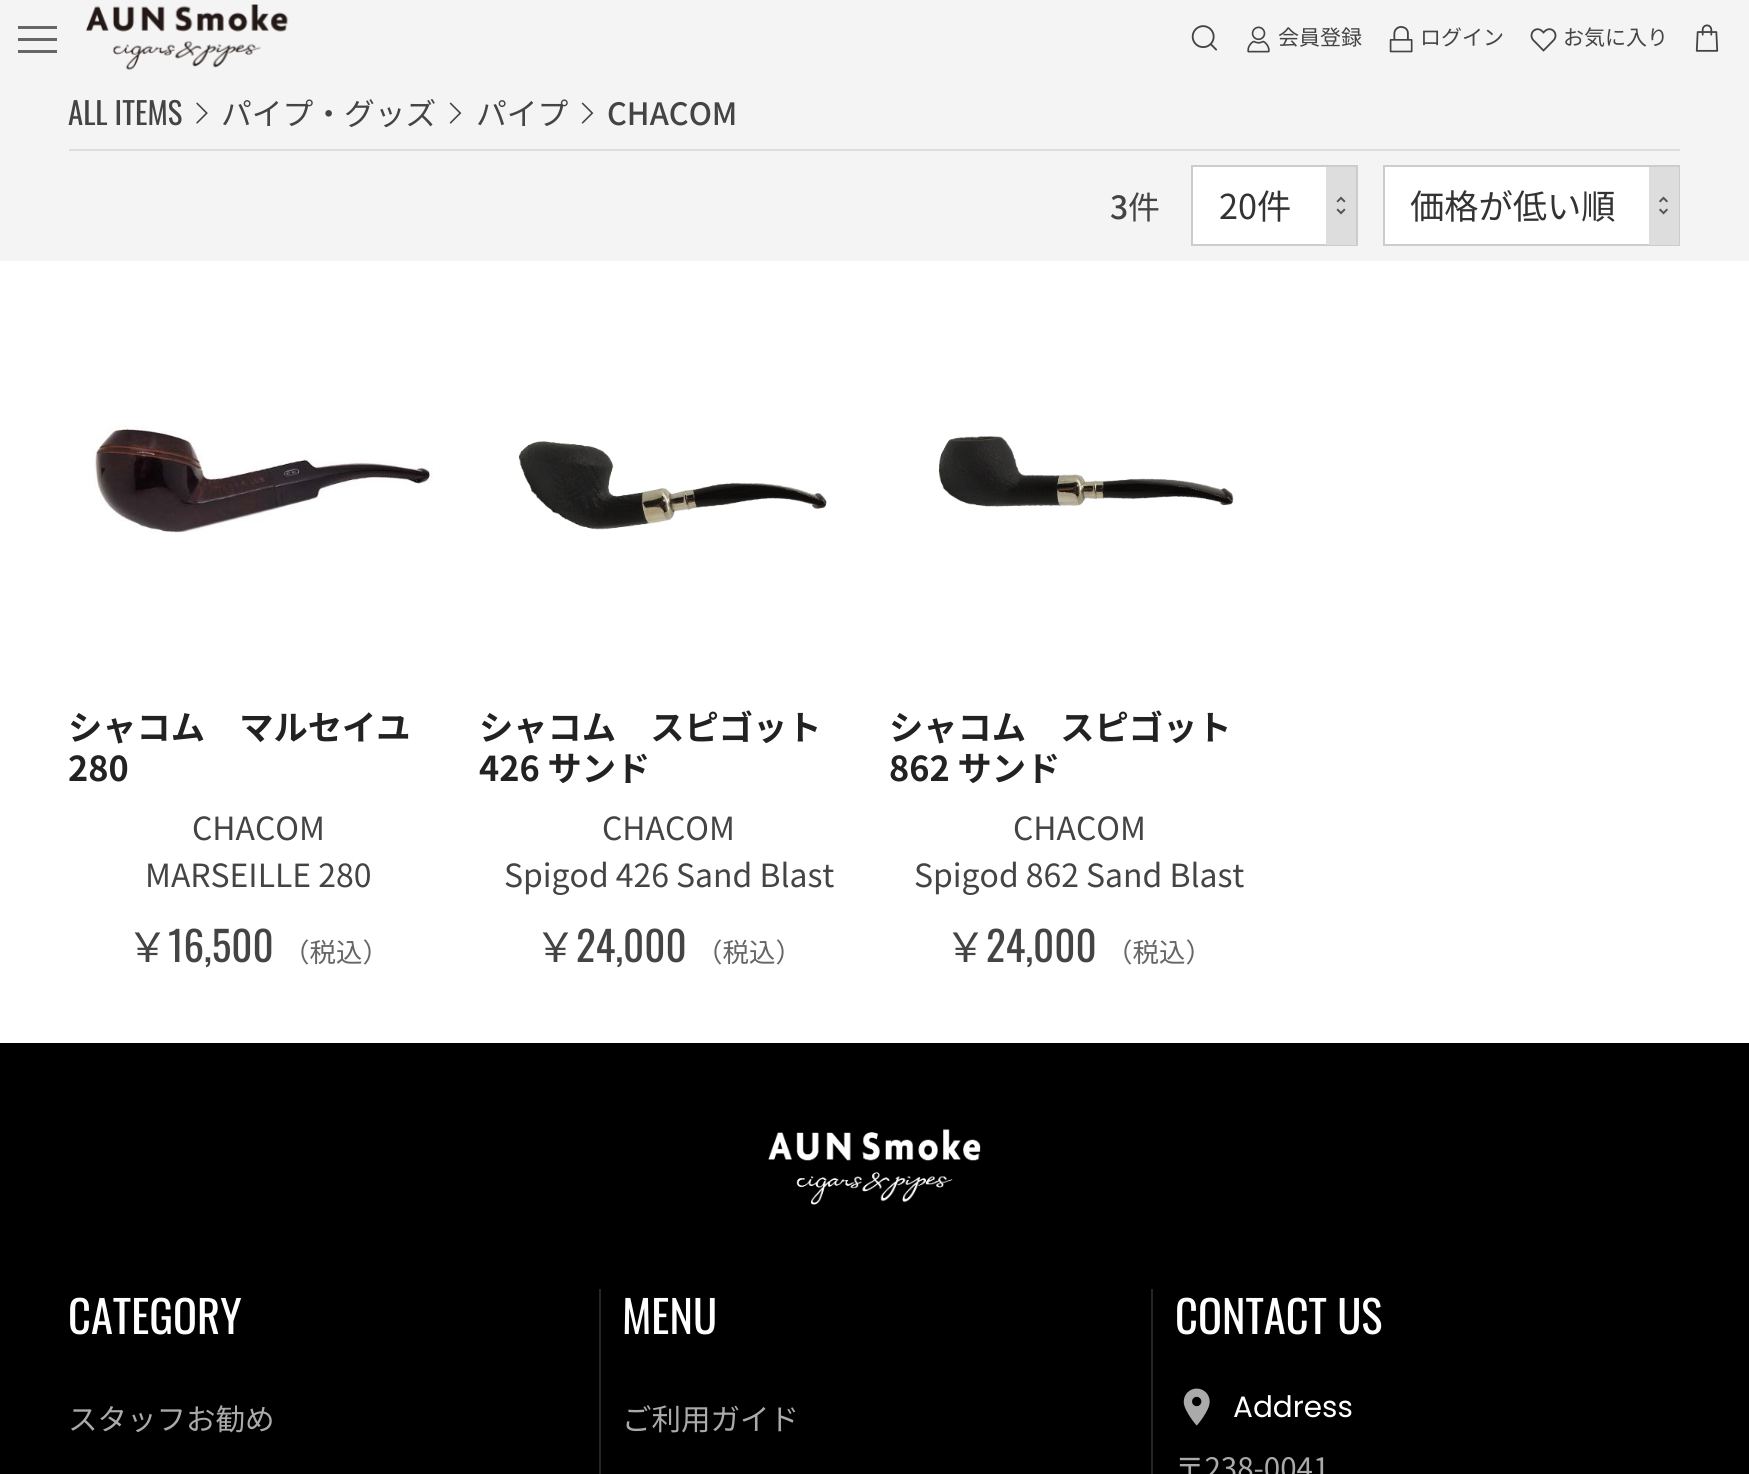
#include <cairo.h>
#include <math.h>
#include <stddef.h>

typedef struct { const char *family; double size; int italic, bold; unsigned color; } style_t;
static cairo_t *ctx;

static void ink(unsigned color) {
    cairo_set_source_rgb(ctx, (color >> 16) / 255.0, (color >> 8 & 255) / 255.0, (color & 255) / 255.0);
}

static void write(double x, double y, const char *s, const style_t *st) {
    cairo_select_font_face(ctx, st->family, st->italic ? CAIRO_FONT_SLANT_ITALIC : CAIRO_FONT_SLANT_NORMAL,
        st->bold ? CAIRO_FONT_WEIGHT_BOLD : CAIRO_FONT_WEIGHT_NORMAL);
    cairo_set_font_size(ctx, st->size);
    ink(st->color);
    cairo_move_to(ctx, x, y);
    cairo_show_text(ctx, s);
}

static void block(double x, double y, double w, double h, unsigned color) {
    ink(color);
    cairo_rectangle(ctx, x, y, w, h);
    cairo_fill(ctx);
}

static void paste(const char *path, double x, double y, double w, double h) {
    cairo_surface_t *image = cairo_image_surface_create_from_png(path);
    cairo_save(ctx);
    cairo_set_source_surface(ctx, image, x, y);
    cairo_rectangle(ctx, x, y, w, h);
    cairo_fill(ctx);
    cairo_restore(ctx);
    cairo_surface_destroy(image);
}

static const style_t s1 = {"Noto Sans JP", 21, 0, 0, 0x444444};
static const style_t s2 = {"Oswald", 30.75, 0, 0, 0x444444};
static const style_t s3 = {"Noto Sans JP", 30.75, 0, 0, 0x444444};
static const style_t s4 = {"Noto Sans JP Medium", 30.75, 0, 0, 0x444444};
static const style_t s5 = {"Noto Sans JP Medium", 31.9, 0, 0, 0x444444};
static const style_t s6 = {"Noto Sans JP", 31.9, 0, 0, 0x444444};
static const style_t s7 = {"Noto Sans JP", 34.25, 0, 0, 0x333333};
static const style_t s8 = {"Noto Sans JP", 34.25, 0, 1, 0x222222};
static const style_t s9 = {"Noto Sans JP", 41, 0, 0, 0x444444};
static const style_t s10 = {"Oswald", 41, 0, 0, 0x444444};
static const style_t s11 = {"Noto Sans JP", 26.5, 0, 0, 0x666666};
static const style_t s12 = {"Oswald", 44.5, 0, 0, 0xffffff};
static const style_t s13 = {"Noto Sans JP", 29.5, 0, 0, 0xaaaaaa};
static const style_t s14 = {"Poppins", 29.5, 0, 0, 0xffffff};

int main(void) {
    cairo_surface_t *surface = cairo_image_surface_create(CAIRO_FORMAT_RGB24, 1749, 1474);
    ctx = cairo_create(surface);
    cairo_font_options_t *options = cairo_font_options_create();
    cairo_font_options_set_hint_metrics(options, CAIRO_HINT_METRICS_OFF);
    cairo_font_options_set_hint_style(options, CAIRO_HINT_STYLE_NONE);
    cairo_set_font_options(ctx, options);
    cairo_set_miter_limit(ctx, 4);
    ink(0xffffff);
    cairo_paint(ctx);
    block(0, 0, 1749, 261, 0xf4f4f4);
    block(18, 38, 39, 3, 0x666666);
    block(18, 26, 39, 3, 0x666666);
    block(18, 50, 39, 3, 0x666666);
    paste("pic1.png", 86, 4, 203, 66);
    paste("pic2.png", 1191, 25, 27, 26);
    paste("pic3.png", 1247, 26, 23, 27);
    write(1278, 45, "会員登録", &s1);
    paste("pic4.png", 1389, 26, 24, 27);
    write(1420, 45, "ログイン", &s1);
    paste("pic5.png", 1530, 28, 27, 24);
    write(1563, 45, "お気に入り", &s1);
    paste("pic6.png", 1695, 24, 24, 28);
    write(68, 125, "ALL ITEMS", &s2);
    paste("pic7.png", 196, 102, 12, 22);
    write(221, 125, "パイプ・グッズ", &s3);
    paste("pic8.png", 449, 102, 13, 22);
    write(476, 125, "パイプ", &s3);
    paste("pic8.png", 581, 102, 13, 22);
    write(607, 125, "CHACOM", &s4);
    block(69, 149, 1611, 2, 0xdddddd);
    write(1110, 219, "3", &s5);
    write(1128, 219, "件", &s6);
    block(1193, 167, 133, 77, 0xffffff);
    cairo_rectangle(ctx, 1192, 166, 165, 79);
    ink(0xcccccc);
    cairo_stroke(ctx);
    write(1219, 219, "20件", &s7);
    block(1326, 167, 30, 78, 0xdddddd);
    paste("pic9.png", 1336, 196, 10, 19);
    block(1385, 167, 264, 77, 0xffffff);
    cairo_rectangle(ctx, 1384, 166, 295, 79);
    ink(0xcccccc);
    cairo_stroke(ctx);
    write(1410, 219, "価格が低い順", &s7);
    block(1649, 167, 30, 78, 0xdddddd);
    paste("pic10.png", 1659, 196, 9, 19);
    paste("pic11.png", 93, 425, 340, 109);
    write(68, 740, "シャコム　マルセイユ", &s8);
    write(68, 781, "280", &s8);
    write(192, 840, "CHACOM", &s6);
    write(145, 887, "MARSEILLE 280", &s6);
    write(127, 962, "￥", &s9);
    write(168, 962, "16,500", &s10);
    write(283, 962, "（税込）", &s11);
    paste("pic12.png", 518, 441, 309, 89);
    write(479, 740, "シャコム　スピゴット", &s8);
    write(479, 781, "426 サンド", &s8);
    write(602, 840, "CHACOM", &s6);
    write(504, 887, "Spigod 426 Sand Blast", &s6);
    write(535, 962, "￥", &s9);
    write(576, 962, "24,000", &s10);
    write(696, 962, "（税込）", &s11);
    paste("pic13.png", 938, 436, 296, 71);
    write(889, 740, "シャコム　スピゴット", &s8);
    write(889, 781, "862 サンド", &s8);
    write(1013, 840, "CHACOM", &s6);
    write(914, 887, "Spigod 862 Sand Blast", &s6);
    write(945, 962, "￥", &s9);
    write(986, 962, "24,000", &s10);
    write(1106, 962, "（税込）", &s11);
    block(0, 1043, 1749, 431, 0x000000);
    paste("pic14.png", 768, 1129, 213, 76);
    write(68, 1334, "CATEGORY", &s12);
    write(68, 1430, "スタッフお勧め", &s13);
    block(599, 1289, 2, 185, 0x262626);
    write(622, 1334, "MENU", &s12);
    write(622, 1430, "ご利用ガイド", &s13);
    block(1151, 1289, 2, 185, 0x262626);
    write(1175, 1334, "CONTACT US", &s12);
    paste("pic15.png", 1183, 1388, 27, 38);
    write(1233, 1417, "Address", &s14);
    write(1175, 1479, "〒238-0041", &s13);
    cairo_surface_write_to_png(surface, "screenshot.png");
    cairo_font_options_destroy(options);
    cairo_destroy(ctx);
    cairo_surface_destroy(surface);
    return 0;
}
